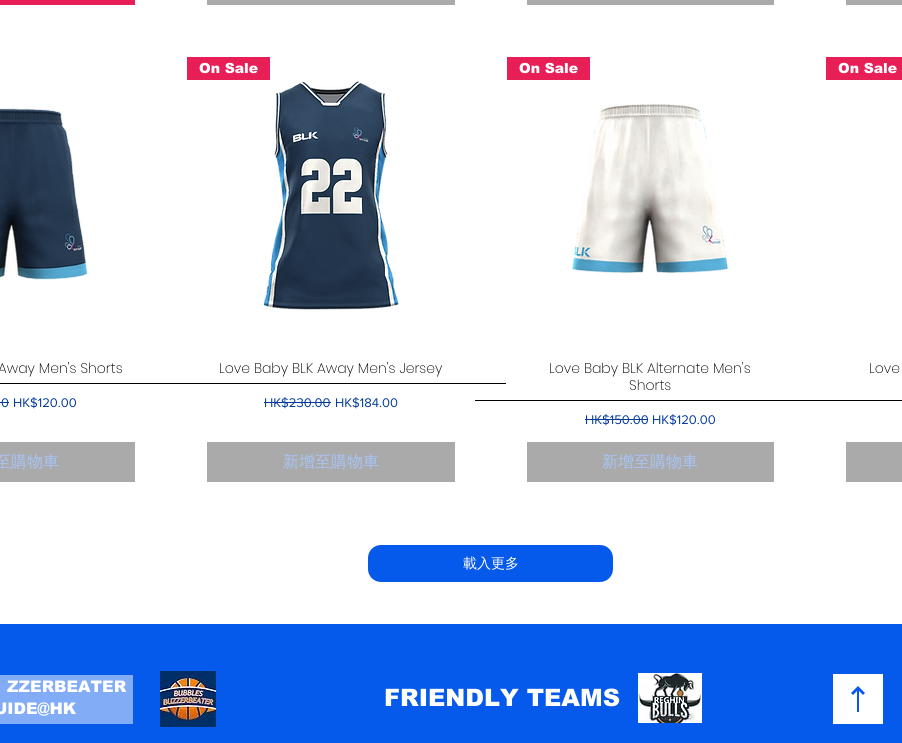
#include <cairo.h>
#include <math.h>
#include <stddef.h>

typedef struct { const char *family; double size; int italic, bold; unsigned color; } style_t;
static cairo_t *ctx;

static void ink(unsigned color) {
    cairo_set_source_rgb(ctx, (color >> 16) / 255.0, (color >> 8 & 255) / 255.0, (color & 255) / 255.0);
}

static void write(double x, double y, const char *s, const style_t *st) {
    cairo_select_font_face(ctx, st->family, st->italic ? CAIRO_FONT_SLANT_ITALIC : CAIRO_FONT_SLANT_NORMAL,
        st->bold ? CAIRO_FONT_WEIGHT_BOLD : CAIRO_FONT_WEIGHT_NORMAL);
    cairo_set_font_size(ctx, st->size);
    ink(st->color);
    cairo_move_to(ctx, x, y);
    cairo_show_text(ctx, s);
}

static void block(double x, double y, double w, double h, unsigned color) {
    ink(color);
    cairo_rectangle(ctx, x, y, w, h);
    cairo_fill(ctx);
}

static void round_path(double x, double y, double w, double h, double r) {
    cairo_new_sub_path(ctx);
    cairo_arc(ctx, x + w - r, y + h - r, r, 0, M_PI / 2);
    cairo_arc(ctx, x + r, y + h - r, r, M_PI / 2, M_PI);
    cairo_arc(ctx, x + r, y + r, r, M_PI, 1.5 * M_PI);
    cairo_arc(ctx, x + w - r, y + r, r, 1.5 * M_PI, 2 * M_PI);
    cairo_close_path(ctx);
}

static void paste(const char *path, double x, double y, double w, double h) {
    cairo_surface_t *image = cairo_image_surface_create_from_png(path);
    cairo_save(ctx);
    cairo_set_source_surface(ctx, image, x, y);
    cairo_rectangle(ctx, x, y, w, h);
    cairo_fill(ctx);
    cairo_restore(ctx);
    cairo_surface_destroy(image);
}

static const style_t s1 = {"arial Black", 14, 0, 0, 0xffffff};
static const style_t s2 = {"Poppins ExtraLight", 14, 0, 0, 0x000000};
static const style_t s3 = {"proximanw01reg", 13, 0, 0, 0x033b9d};
static const style_t s4 = {"WenQuanYi Zen Hei Medium", 16, 0, 0, 0xa7c5f8};
static const style_t s5 = {"WenQuanYi Zen Hei Medium", 14, 0, 0, 0xffffff};
static const style_t s6 = {"arial Black", 16, 0, 0, 0xffffff};
static const style_t s7 = {"arial Black", 24, 0, 0, 0xffffff};

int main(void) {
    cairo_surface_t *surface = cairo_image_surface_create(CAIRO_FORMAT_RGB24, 902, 743);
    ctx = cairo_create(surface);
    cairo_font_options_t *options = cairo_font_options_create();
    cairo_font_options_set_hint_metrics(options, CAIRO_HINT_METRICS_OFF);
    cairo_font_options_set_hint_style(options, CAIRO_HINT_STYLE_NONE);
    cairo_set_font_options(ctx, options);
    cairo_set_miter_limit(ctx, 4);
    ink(0xffffff);
    cairo_paint(ctx);
    block(0, 0, 135, 5, 0xe81e56);
    block(207, 0, 248, 5, 0xaaaaaa);
    block(527, 0, 247, 5, 0xaaaaaa);
    block(846, 0, 56, 5, 0xaaaaaa);
    block(187, 57, 83, 23, 0xe81e56);
    write(199, 73, "On Sale", &s1);
    paste("pic1.png", 263, 81, 136, 229);
    write(219, 373, "Love Baby BLK Away Men's Jersey", &s2);
    write(264, 407, "HK$230.00", &s3);
    block(264, 402, 67, 1, 0x033b9d);
    write(335, 407, "HK$184.00", &s3);
    block(207, 442, 248, 40, 0xaaaaaa);
    write(283, 467, "新增至購物車", &s4);
    block(507, 57, 83, 23, 0xe81e56);
    write(519, 73, "On Sale", &s1);
    paste("pic2.png", 572, 102, 157, 172);
    write(549, 373, "Love Baby BLK Alternate Men's", &s2);
    write(629, 390, "Shorts", &s2);
    block(475, 400, 427, 1, 0x000000);
    write(585, 424, "HK$150.00", &s3);
    block(585, 419, 63, 1, 0x033b9d);
    write(652, 424, "HK$120.00", &s3);
    block(527, 442, 247, 40, 0xaaaaaa);
    write(602, 467, "新增至購物車", &s4);
    block(826, 57, 76, 23, 0xe81e56);
    write(838, 73, "On Sale", &s1);
    write(869, 373, "Love", &s2);
    block(846, 442, 56, 40, 0xaaaaaa);
    paste("pic3.png", 0, 108, 88, 172);
    write(-2, 373, "Away Men's Shorts", &s2);
    block(0, 383, 506, 1, 0x000000);
    write(1, 407, "0", &s3);
    block(0, 402, 9, 1, 0x033b9d);
    write(13, 407, "HK$120.00", &s3);
    block(0, 442, 135, 40, 0xaaaaaa);
    write(-5, 467, "至購物車", &s4);
    ink(0x0559eb);
    round_path(367, 544, 247, 39, 14);
    cairo_fill_preserve(ctx);
    ink(0xffffff);
    cairo_stroke(ctx);
    write(463, 568, "載入更多", &s5);
    block(0, 624, 902, 119, 0x0559eb);
    block(0, 675, 133, 49, 0x82acf5);
    paste("pic4.png", 160, 671, 56, 56);
    write(7, 692, "ZZERBEATER", &s6);
    write(-6, 714, "UIDE@HK", &s6);
    write(384, 706, "FRIENDLY TEAMS", &s7);
    paste("pic5.png", 638, 673, 64, 50);
    cairo_new_path(ctx);
    cairo_move_to(ctx, 833, 674);
    cairo_line_to(ctx, 833, 724);
    cairo_line_to(ctx, 883, 724);
    cairo_line_to(ctx, 883, 674);
    cairo_close_path(ctx);
    cairo_move_to(ctx, 863, 695);
    cairo_line_to(ctx, 859, 691);
    cairo_line_to(ctx, 859, 712);
    cairo_line_to(ctx, 857, 712);
    cairo_line_to(ctx, 857, 691);
    cairo_line_to(ctx, 853, 695);
    cairo_line_to(ctx, 851, 693);
    cairo_line_to(ctx, 858, 686);
    cairo_line_to(ctx, 865, 693);
    cairo_close_path(ctx);
    cairo_fill(ctx);
    cairo_surface_write_to_png(surface, "screenshot.png");
    cairo_font_options_destroy(options);
    cairo_destroy(ctx);
    cairo_surface_destroy(surface);
    return 0;
}
